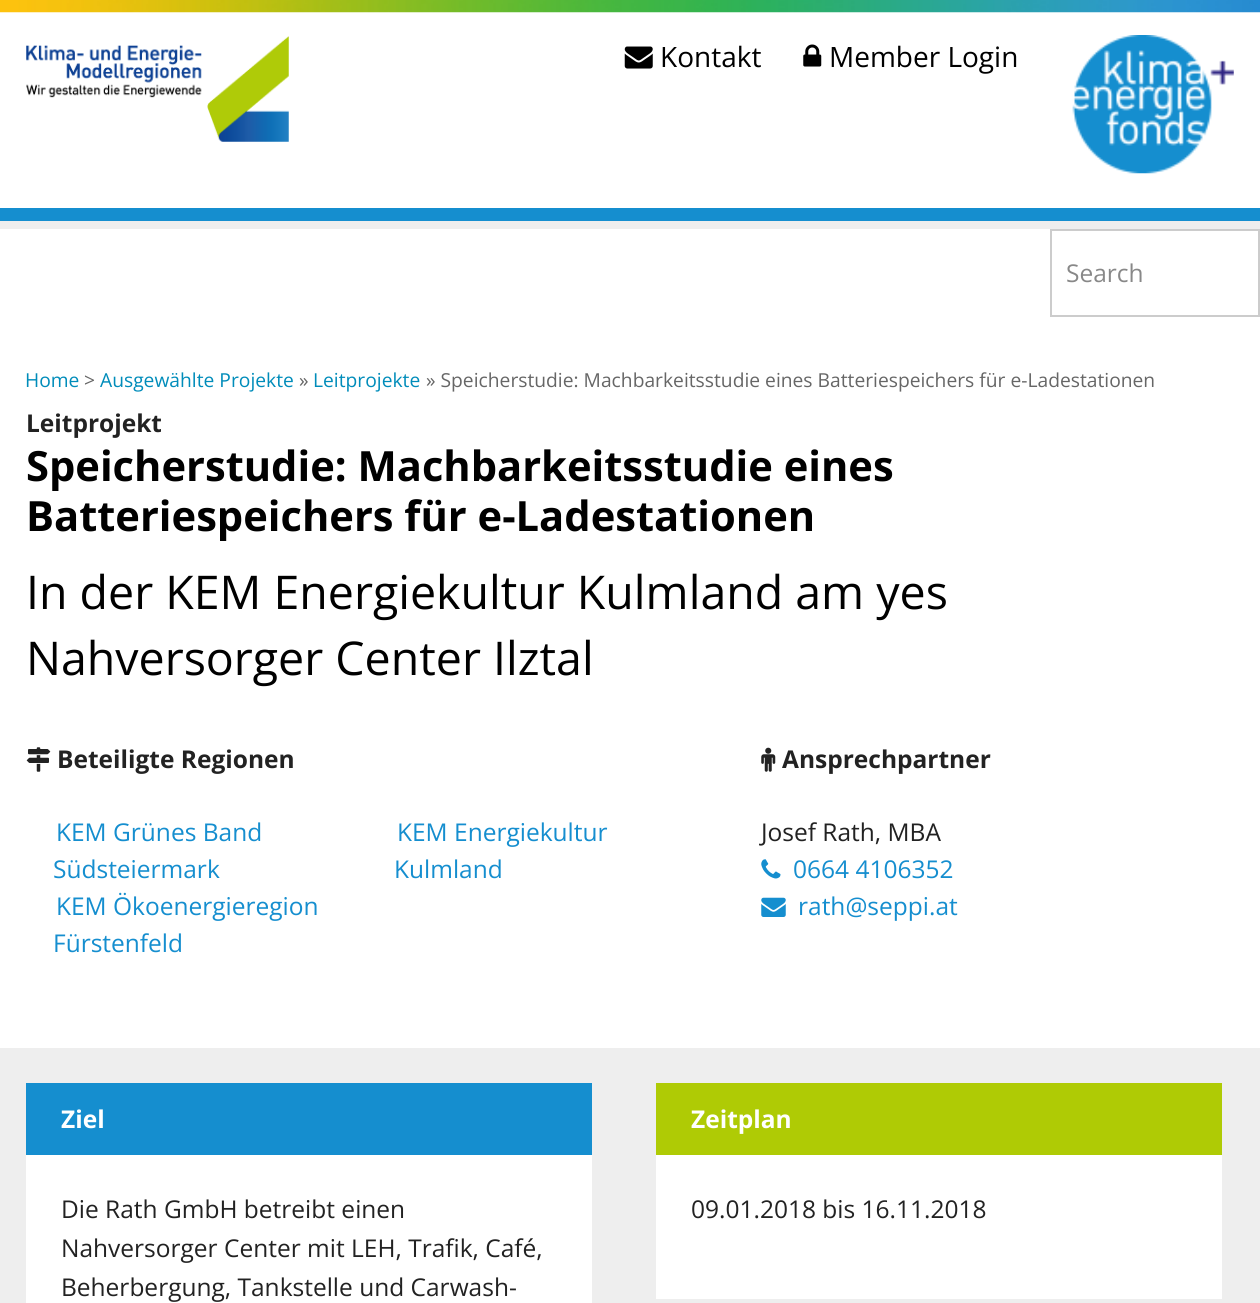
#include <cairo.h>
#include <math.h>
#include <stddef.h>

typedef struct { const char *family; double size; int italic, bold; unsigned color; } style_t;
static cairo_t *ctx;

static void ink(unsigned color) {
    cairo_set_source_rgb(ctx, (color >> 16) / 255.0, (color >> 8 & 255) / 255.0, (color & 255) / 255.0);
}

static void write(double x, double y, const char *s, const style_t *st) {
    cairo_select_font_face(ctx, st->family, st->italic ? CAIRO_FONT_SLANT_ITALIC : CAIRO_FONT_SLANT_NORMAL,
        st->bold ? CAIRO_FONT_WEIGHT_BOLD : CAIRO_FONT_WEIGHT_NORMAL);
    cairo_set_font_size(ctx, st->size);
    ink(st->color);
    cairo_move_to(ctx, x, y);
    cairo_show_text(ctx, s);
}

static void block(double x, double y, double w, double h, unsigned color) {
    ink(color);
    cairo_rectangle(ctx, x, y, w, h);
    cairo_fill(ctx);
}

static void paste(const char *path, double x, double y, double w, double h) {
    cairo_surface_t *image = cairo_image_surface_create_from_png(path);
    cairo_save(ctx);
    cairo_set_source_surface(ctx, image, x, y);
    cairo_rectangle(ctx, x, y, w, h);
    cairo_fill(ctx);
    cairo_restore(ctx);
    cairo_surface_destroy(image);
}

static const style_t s1 = {"Open Sans", 28, 0, 0, 0x000000};
static const style_t s2 = {"Open Sans", 24.5, 0, 0, 0x888888};
static const style_t s3 = {"Open Sans", 19.25, 0, 0, 0x008cba};
static const style_t s4 = {"Open Sans", 19.25, 0, 0, 0x666666};
static const style_t s5 = {"Open Sans", 24.5, 0, 1, 0x222222};
static const style_t s6 = {"Open Sans", 41.65, 0, 1, 0x000000};
static const style_t s7 = {"Open Sans", 46.5, 0, 0, 0x000000};
static const style_t s8 = {"Open Sans", 24.5, 0, 0, 0x158ecf};
static const style_t s9 = {"Open Sans", 24.5, 0, 0, 0x222222};
static const style_t s10 = {"Open Sans", 24.5, 0, 1, 0xffffff};

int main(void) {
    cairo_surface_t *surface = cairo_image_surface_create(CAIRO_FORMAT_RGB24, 1260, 1303);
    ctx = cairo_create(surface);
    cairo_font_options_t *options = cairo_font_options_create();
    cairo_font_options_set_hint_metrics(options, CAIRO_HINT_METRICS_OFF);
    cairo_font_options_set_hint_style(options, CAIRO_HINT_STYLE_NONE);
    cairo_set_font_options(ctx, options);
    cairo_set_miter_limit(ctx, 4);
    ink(0xeeeeee);
    cairo_paint(ctx);
    block(0, 12, 1260, 196, 0xffffff);
    paste("pic1.png", 0, 0, 1260, 13);
    paste("pic2.png", 26, 36, 263, 106);
    paste("pic3.png", 624, 46, 29, 23);
    write(660, 67, "Kontakt", &s1);
    paste("pic4.png", 803, 44, 19, 23);
    write(829, 67, "Member Login", &s1);
    paste("pic5.png", 1072, 35, 162, 139);
    block(0, 208, 1260, 13, 0x158ecf);
    block(0, 229, 1260, 819, 0xffffff);
    cairo_rectangle(ctx, 1051, 230, 208, 86);
    ink(0xcccccc);
    cairo_stroke(ctx);
    write(1066, 282, "Search", &s2);
    write(25, 387, "Home", &s3);
    write(84, 387, ">", &s4);
    write(100, 387, "Ausgewählte Projekte", &s3);
    write(299, 387, "»", &s4);
    write(313, 387, "Leitprojekte", &s3);
    write(426, 387, "» Speicherstudie: Machbarkeitsstudie eines Batteriespeichers für e-Ladestationen", &s4);
    write(26, 432, "Leitprojekt", &s5);
    write(26, 481, "Speicherstudie: Machbarkeitsstudie eines", &s6);
    write(26, 531, "Batteriespeichers für e-Ladestationen", &s6);
    write(26, 609, "In der KEM Energiekultur Kulmland am yes", &s7);
    write(26, 675, "Nahversorger Center Ilztal", &s7);
    paste("pic6.png", 26, 747, 25, 25);
    write(57, 768, "Beteiligte Regionen", &s5);
    write(56, 841, "KEM Grünes Band", &s8);
    write(53, 878, "Südsteiermark", &s8);
    write(397, 841, "KEM Energiekultur", &s8);
    write(394, 878, "Kulmland", &s8);
    write(56, 915, "KEM Ökoenergieregion", &s8);
    write(53, 952, "Fürstenfeld", &s8);
    paste("pic7.png", 761, 747, 15, 25);
    write(782, 768, "Ansprechpartner", &s5);
    write(761, 841, "Josef Rath, MBA", &s9);
    paste("pic8.png", 761, 859, 20, 20);
    write(793, 878, "0664 4106352", &s8);
    paste("pic9.png", 761, 897, 25, 20);
    write(798, 915, "rath@seppi.at", &s8);
    block(26, 1155, 566, 148, 0xffffff);
    block(26, 1083, 566, 72, 0x158ecf);
    write(61, 1128, "Ziel", &s10);
    write(61, 1218, "Die Rath GmbH betreibt einen", &s9);
    write(61, 1257, "Nahversorger Center mit LEH, Trafik, Café,", &s9);
    write(61, 1296, "Beherbergung, Tankstelle und Carwash-", &s9);
    block(656, 1155, 566, 144, 0xffffff);
    block(656, 1083, 566, 72, 0xafcb05);
    write(691, 1128, "Zeitplan", &s10);
    write(691, 1218, "09.01.2018 bis 16.11.2018", &s9);
    cairo_surface_write_to_png(surface, "screenshot.png");
    cairo_font_options_destroy(options);
    cairo_destroy(ctx);
    cairo_surface_destroy(surface);
    return 0;
}
